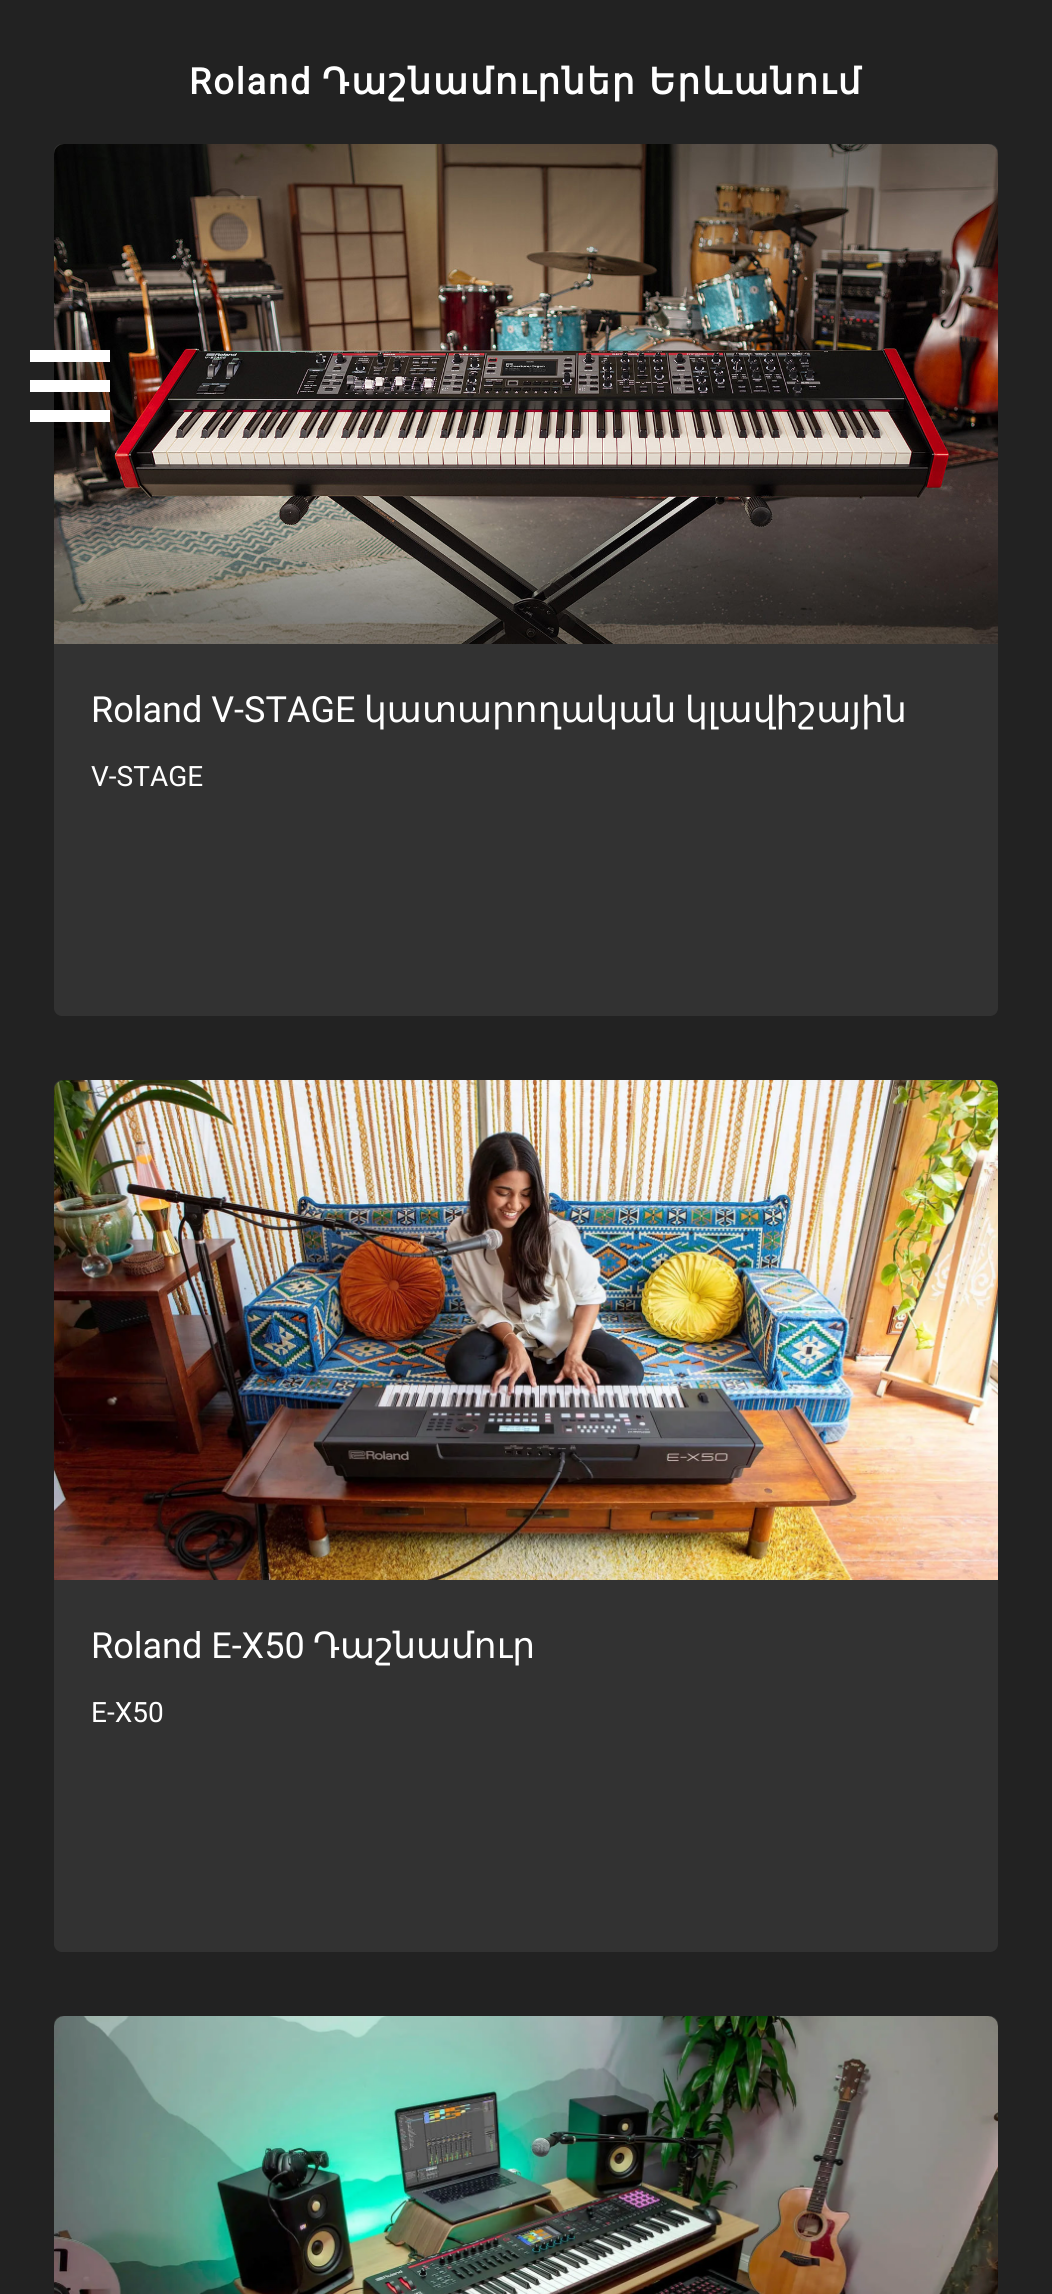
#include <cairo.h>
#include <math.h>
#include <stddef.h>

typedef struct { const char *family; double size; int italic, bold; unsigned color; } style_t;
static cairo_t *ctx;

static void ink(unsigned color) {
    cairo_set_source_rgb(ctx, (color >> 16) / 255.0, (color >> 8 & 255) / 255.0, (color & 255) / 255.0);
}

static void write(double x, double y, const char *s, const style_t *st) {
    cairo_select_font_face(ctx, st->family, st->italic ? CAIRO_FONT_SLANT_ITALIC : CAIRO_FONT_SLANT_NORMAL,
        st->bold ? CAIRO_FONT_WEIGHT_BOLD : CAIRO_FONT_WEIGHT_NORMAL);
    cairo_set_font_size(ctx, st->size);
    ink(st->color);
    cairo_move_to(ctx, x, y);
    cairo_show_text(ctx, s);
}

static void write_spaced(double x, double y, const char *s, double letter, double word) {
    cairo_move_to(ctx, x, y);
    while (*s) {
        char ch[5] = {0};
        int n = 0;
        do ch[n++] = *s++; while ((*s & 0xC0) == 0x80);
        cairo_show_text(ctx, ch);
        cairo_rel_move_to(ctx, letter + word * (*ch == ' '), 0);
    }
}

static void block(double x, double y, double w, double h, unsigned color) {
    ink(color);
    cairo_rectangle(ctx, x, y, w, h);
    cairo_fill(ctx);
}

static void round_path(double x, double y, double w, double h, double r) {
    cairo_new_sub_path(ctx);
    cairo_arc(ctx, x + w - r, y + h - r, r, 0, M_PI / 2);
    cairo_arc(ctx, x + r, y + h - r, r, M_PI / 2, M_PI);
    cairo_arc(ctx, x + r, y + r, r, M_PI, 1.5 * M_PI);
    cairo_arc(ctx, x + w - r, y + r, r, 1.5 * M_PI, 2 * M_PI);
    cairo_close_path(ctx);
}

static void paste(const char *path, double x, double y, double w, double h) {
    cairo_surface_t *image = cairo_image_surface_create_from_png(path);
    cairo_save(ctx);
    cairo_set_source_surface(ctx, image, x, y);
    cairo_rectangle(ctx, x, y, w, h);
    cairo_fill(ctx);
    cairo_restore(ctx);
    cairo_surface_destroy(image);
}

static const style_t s1 = {"Roboto", 36, 0, 0, 0xffffff};
static const style_t s2 = {"DejaVu Sans", 36, 0, 0, 0xffffff};
static const style_t s3 = {"Roboto", 28, 0, 0, 0xffffff};

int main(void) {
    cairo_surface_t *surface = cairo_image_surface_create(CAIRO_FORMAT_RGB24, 1052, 2294);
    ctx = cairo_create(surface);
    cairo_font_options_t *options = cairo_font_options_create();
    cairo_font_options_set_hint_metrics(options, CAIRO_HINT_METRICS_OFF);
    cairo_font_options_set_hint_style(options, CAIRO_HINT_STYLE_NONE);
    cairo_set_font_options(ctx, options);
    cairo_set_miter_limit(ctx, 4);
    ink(0x222222);
    cairo_paint(ctx);
    cairo_select_font_face(ctx, "Roboto", CAIRO_FONT_SLANT_NORMAL, CAIRO_FONT_WEIGHT_BOLD);
    cairo_set_font_size(ctx, 36);
    ink(0xffffff);
    write_spaced(189, 94, "Roland", 2, 0);
    cairo_select_font_face(ctx, "DejaVu Sans", CAIRO_FONT_SLANT_NORMAL, CAIRO_FONT_WEIGHT_BOLD);
    write_spaced(322, 94, "Դաշնամուրներ Երևանում", 2, -1);
    ink(0x323232);
    round_path(53, 143, 946, 874, 9);
    cairo_fill_preserve(ctx);
    ink(0x222222);
    cairo_stroke(ctx);
    paste("pic1.png", 54, 144, 944, 500);
    block(30, 350, 80, 12, 0xffffff);
    block(30, 380, 80, 12, 0xffffff);
    block(30, 410, 80, 12, 0xffffff);
    write(91, 722, "Roland V-STAGE", &s1);
    write(364, 722, "կատարողական", &s2);
    write(685, 722, "կլավիշային", &s2);
    write(91, 786, "V-STAGE", &s3);
    ink(0x323232);
    round_path(53, 1079, 946, 874, 9);
    cairo_fill_preserve(ctx);
    ink(0x222222);
    cairo_stroke(ctx);
    paste("pic2.png", 54, 1080, 944, 500);
    write(91, 1658, "Roland E-X50", &s1);
    write(313, 1658, "Դաշնամուր", &s2);
    write(91, 1722, "E-X50", &s3);
    ink(0x323232);
    round_path(53, 2015, 946, 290, 9);
    cairo_fill_preserve(ctx);
    ink(0x222222);
    cairo_stroke(ctx);
    paste("pic3.png", 54, 2016, 944, 278);
    cairo_surface_write_to_png(surface, "screenshot.png");
    cairo_font_options_destroy(options);
    cairo_destroy(ctx);
    cairo_surface_destroy(surface);
    return 0;
}
